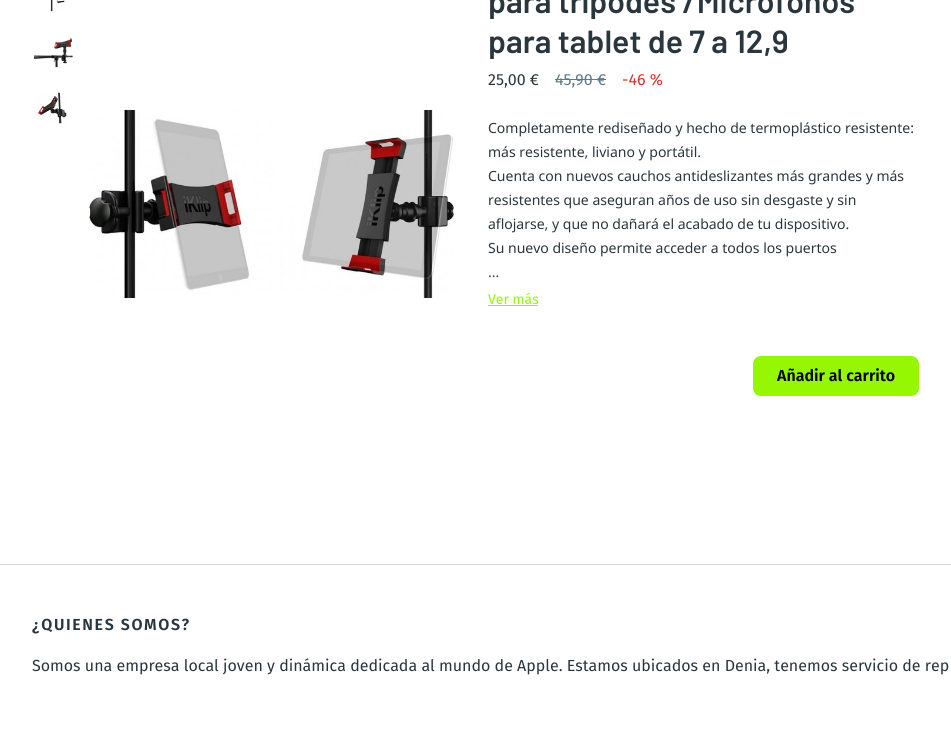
#include <cairo.h>
#include <math.h>
#include <stddef.h>

typedef struct { const char *family; double size; int italic, bold; unsigned color; } style_t;
static cairo_t *ctx;

static void ink(unsigned color) {
    cairo_set_source_rgb(ctx, (color >> 16) / 255.0, (color >> 8 & 255) / 255.0, (color & 255) / 255.0);
}

static void write(double x, double y, const char *s, const style_t *st) {
    cairo_select_font_face(ctx, st->family, st->italic ? CAIRO_FONT_SLANT_ITALIC : CAIRO_FONT_SLANT_NORMAL,
        st->bold ? CAIRO_FONT_WEIGHT_BOLD : CAIRO_FONT_WEIGHT_NORMAL);
    cairo_set_font_size(ctx, st->size);
    ink(st->color);
    cairo_move_to(ctx, x, y);
    cairo_show_text(ctx, s);
}

static void write_spaced(double x, double y, const char *s, double letter, double word) {
    cairo_move_to(ctx, x, y);
    while (*s) {
        char ch[5] = {0};
        int n = 0;
        do ch[n++] = *s++; while ((*s & 0xC0) == 0x80);
        cairo_show_text(ctx, ch);
        cairo_rel_move_to(ctx, letter + word * (*ch == ' '), 0);
    }
}

static void block(double x, double y, double w, double h, unsigned color) {
    ink(color);
    cairo_rectangle(ctx, x, y, w, h);
    cairo_fill(ctx);
}

static void round_path(double x, double y, double w, double h, double r) {
    cairo_new_sub_path(ctx);
    cairo_arc(ctx, x + w - r, y + h - r, r, 0, M_PI / 2);
    cairo_arc(ctx, x + r, y + h - r, r, M_PI / 2, M_PI);
    cairo_arc(ctx, x + r, y + r, r, M_PI, 1.5 * M_PI);
    cairo_arc(ctx, x + w - r, y + r, r, 1.5 * M_PI, 2 * M_PI);
    cairo_close_path(ctx);
}

static void paste(const char *path, double x, double y, double w, double h) {
    cairo_surface_t *image = cairo_image_surface_create_from_png(path);
    cairo_save(ctx);
    cairo_set_source_surface(ctx, image, x, y);
    cairo_rectangle(ctx, x, y, w, h);
    cairo_fill(ctx);
    cairo_restore(ctx);
    cairo_surface_destroy(image);
}

static const style_t s1 = {"Barlow SemiBold", 32, 0, 0, 0x29363d};
static const style_t s2 = {"Fira Sans", 16, 0, 0, 0x29363d};
static const style_t s3 = {"Fira Sans", 16, 0, 0, 0x5c7a89};
static const style_t s4 = {"Fira Sans", 16, 0, 0, 0xce3528};
static const style_t s5 = {"Noto Sans", 14, 0, 0, 0x29363d};
static const style_t s6 = {"Noto Sans", 14, 0, 0, 0x374151};
static const style_t s7 = {"Fira Sans", 14, 0, 0, 0x95f702};
static const style_t s8 = {"Fira Sans SemiBold", 16, 0, 0, 0x000000};

int main(void) {
    cairo_surface_t *surface = cairo_image_surface_create(CAIRO_FORMAT_RGB24, 951, 736);
    ctx = cairo_create(surface);
    cairo_font_options_t *options = cairo_font_options_create();
    cairo_font_options_set_hint_metrics(options, CAIRO_HINT_METRICS_OFF);
    cairo_font_options_set_hint_style(options, CAIRO_HINT_STYLE_NONE);
    cairo_set_font_options(ctx, options);
    cairo_set_miter_limit(ctx, 4);
    ink(0xffffff);
    cairo_paint(ctx);
    paste("pic1.png", 50, 0, 15, 12);
    paste("pic2.png", 34, 37, 40, 31);
    paste("pic3.png", 38, 92, 29, 32);
    paste("pic4.png", 88, 109, 367, 190);
    write(488, 13, "para trípodes /Micrófonos", &s1);
    write(488, 53, "para tablet de 7 a 12,9", &s1);
    write(488, 85, "25,00 €", &s2);
    write(555, 85, "45,90 €", &s3);
    block(555, 79, 51, 1, 0x5c7a89);
    write(622, 85, "-46 %", &s4);
    write(488, 133, "Completamente rediseñado y hecho de termoplástico resistente:", &s5);
    write(488, 157, "más resistente, liviano y portátil.", &s5);
    write(488, 181, "Cuenta con nuevos cauchos antideslizantes más grandes y más", &s5);
    write(488, 205, "resistentes que aseguran años de uso sin desgaste y sin", &s5);
    write(488, 229, "aflojarse, y que no dañará el acabado de tu dispositivo.", &s5);
    write(488, 253, "Su nuevo diseño permite acceder a todos los puertos", &s5);
    write(488, 277, "...", &s6);
    write(488, 304, "Ver más", &s7);
    block(488, 305, 50, 1, 0x95f702);
    round_path(753, 356, 166, 40, 8);
    cairo_fill(ctx);
    write(777, 381, "Añadir al carrito", &s8);
    block(0, 564, 951, 1, 0xd1dbe0);
    ink(0x29363d);
    write_spaced(32, 630, "¿QUIENES SOMOS?", 1.6, 0);
    write(32, 671, "Somos una empresa local joven y dinámica dedicada al mundo de Apple. Estamos ubicados en Denia, tenemos servicio de rep", &s2);
    cairo_surface_write_to_png(surface, "screenshot.png");
    cairo_font_options_destroy(options);
    cairo_destroy(ctx);
    cairo_surface_destroy(surface);
    return 0;
}
